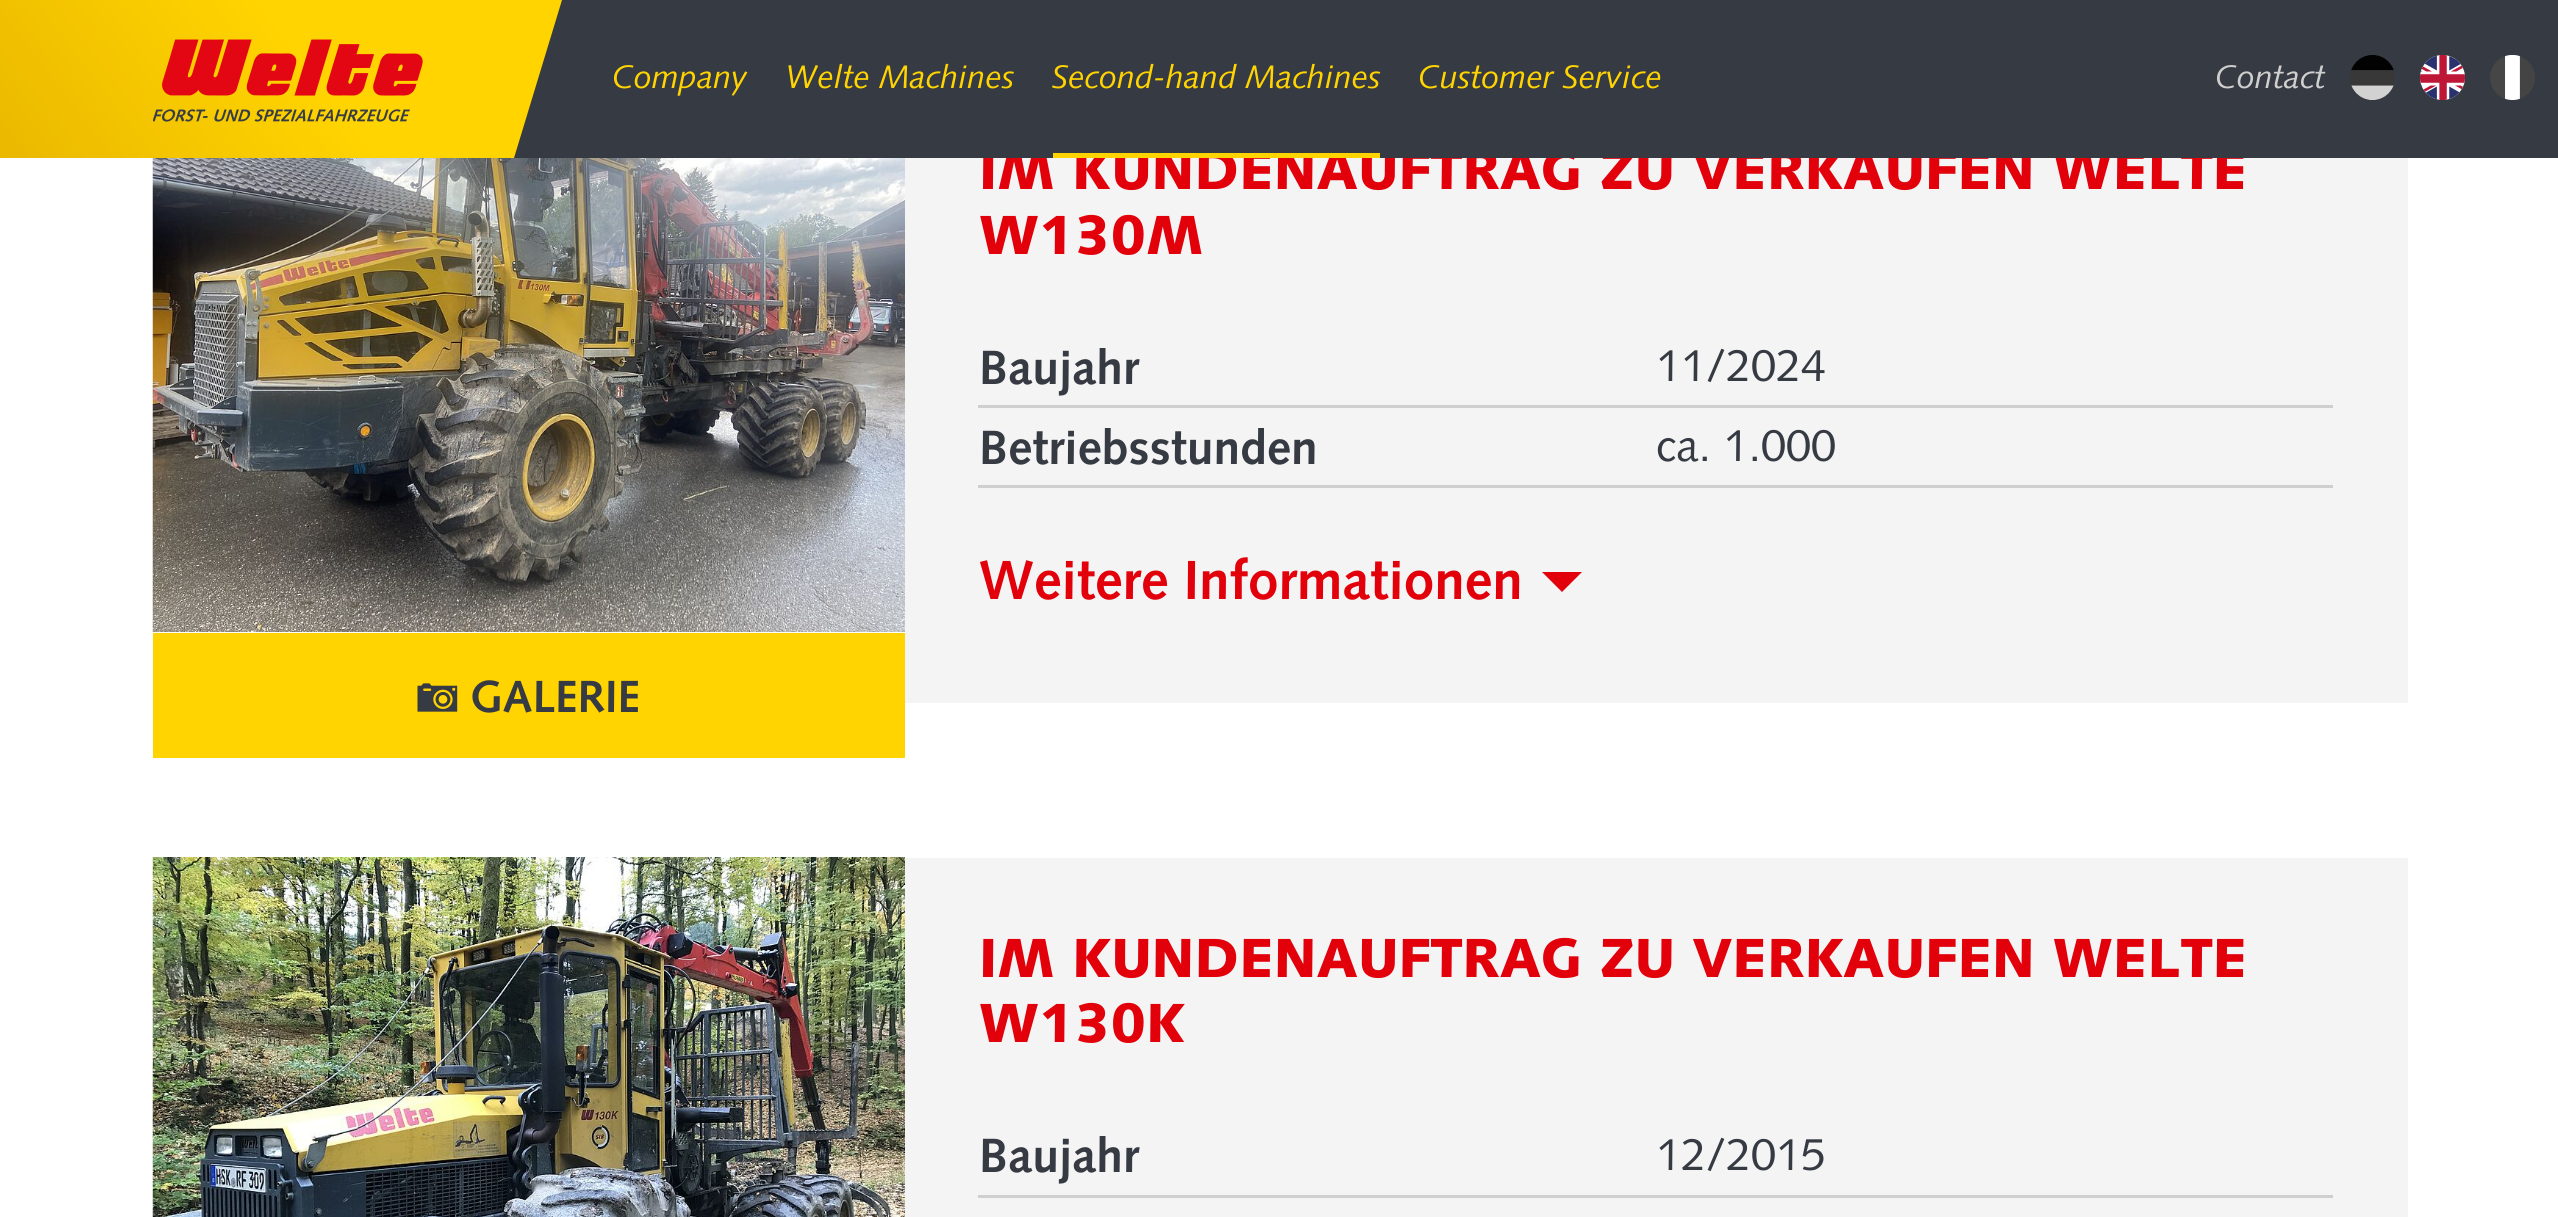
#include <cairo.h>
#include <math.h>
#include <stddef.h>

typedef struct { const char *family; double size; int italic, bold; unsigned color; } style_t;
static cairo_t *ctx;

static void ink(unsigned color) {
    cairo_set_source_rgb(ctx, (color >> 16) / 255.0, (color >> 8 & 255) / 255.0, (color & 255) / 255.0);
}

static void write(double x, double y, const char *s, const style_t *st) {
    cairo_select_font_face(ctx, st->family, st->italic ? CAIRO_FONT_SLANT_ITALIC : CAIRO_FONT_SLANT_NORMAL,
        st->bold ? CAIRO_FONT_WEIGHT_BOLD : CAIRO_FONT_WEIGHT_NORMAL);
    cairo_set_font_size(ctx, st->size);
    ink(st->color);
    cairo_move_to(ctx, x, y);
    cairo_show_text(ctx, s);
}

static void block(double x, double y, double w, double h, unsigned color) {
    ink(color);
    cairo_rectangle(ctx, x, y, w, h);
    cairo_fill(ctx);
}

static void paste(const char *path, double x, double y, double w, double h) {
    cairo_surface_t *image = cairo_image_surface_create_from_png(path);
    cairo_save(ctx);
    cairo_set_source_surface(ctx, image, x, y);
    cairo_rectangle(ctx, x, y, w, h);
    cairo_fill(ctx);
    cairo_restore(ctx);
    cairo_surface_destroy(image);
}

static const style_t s1 = {"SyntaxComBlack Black", 55, 0, 0, 0xe2000a};
static const style_t s2 = {"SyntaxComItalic", 32.5, 0, 0, 0xffd400};
static const style_t s3 = {"SyntaxComItalic", 32.5, 0, 0, 0xcfcfcf};
static const style_t s4 = {"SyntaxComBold", 48, 0, 1, 0x363a42};
static const style_t s5 = {"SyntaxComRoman", 45, 0, 0, 0x363a42};
static const style_t s6 = {"SyntaxComBold", 55, 0, 1, 0xe2000a};
static const style_t s7 = {"SyntaxComBold", 45, 0, 1, 0x363a42};

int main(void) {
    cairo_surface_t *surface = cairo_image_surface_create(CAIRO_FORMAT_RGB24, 2558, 1217);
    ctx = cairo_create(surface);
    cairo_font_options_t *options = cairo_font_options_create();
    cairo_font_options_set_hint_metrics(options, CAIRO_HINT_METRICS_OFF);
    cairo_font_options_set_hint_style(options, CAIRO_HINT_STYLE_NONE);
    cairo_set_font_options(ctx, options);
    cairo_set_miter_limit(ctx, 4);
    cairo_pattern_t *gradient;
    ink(0xffffff);
    cairo_paint(ctx);
    block(905, 158, 1503, 545, 0xf4f4f4);
    write(979, 189, "IM KUNDENAUFTRAG ZU VERKAUFEN WELTE", &s1);
    block(514, 0, 2044, 158, 0x363a42);
    gradient = cairo_pattern_create_linear(-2.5, 266, 486, -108);
    cairo_pattern_add_color_stop_rgba(gradient, 0, 0.898, 0.698, 0, 1);
    cairo_pattern_add_color_stop_rgba(gradient, 0.6, 1, 0.831, 0, 1);
    cairo_set_source(ctx, gradient);
    cairo_pattern_destroy(gradient);
    cairo_new_path(ctx);
    cairo_move_to(ctx, -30, 0);
    cairo_line_to(ctx, 562, 0);
    cairo_line_to(ctx, 514, 158);
    cairo_line_to(ctx, -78, 158);
    cairo_close_path(ctx);
    cairo_fill(ctx);
    paste("pic1.png", 153, 39, 270, 83);
    write(612, 88, "Company", &s2);
    write(785, 88, "Welte Machines", &s2);
    block(1053, 153, 327, 5, 0xffd400);
    write(1052, 88, "Second-hand Machines", &s2);
    write(1418, 88, "Customer Service", &s2);
    write(2215, 88, "Contact", &s3);
    paste("pic2.png", 2350, 55, 45, 45);
    paste("pic3.png", 2420, 55, 45, 45);
    paste("pic4.png", 2490, 55, 45, 45);
    write(979, 254, "W130M", &s1);
    block(978, 405, 1355, 3, 0xcfcfcf);
    write(979, 384, "Baujahr", &s4);
    write(1656, 381, "11/2024", &s5);
    block(978, 485, 1355, 3, 0xcfcfcf);
    write(979, 464, "Betriebsstunden", &s4);
    write(1656, 461, "ca. 1.000", &s5);
    write(979, 599, "Weitere Informationen", &s6);
    cairo_new_path(ctx);
    cairo_move_to(ctx, 1542, 572);
    cairo_line_to(ctx, 1582, 572);
    cairo_line_to(ctx, 1562, 592);
    cairo_close_path(ctx);
    cairo_fill(ctx);
    paste("pic5.png", 152, 158, 753, 474);
    block(153, 633, 752, 125, 0xffd400);
    paste("pic6.png", 417, 683, 41, 29);
    write(470, 712, "GALERIE", &s7);
    paste("pic7.png", 152, 857, 753, 360);
    block(905, 858, 1503, 359, 0xf4f4f4);
    write(979, 977, "IM KUNDENAUFTRAG ZU VERKAUFEN WELTE", &s1);
    write(979, 1042, "W130K", &s1);
    block(978, 1195, 1355, 3, 0xcfcfcf);
    write(979, 1172, "Baujahr", &s4);
    write(1656, 1170, "12/2015", &s5);
    cairo_surface_write_to_png(surface, "screenshot.png");
    cairo_font_options_destroy(options);
    cairo_destroy(ctx);
    cairo_surface_destroy(surface);
    return 0;
}
